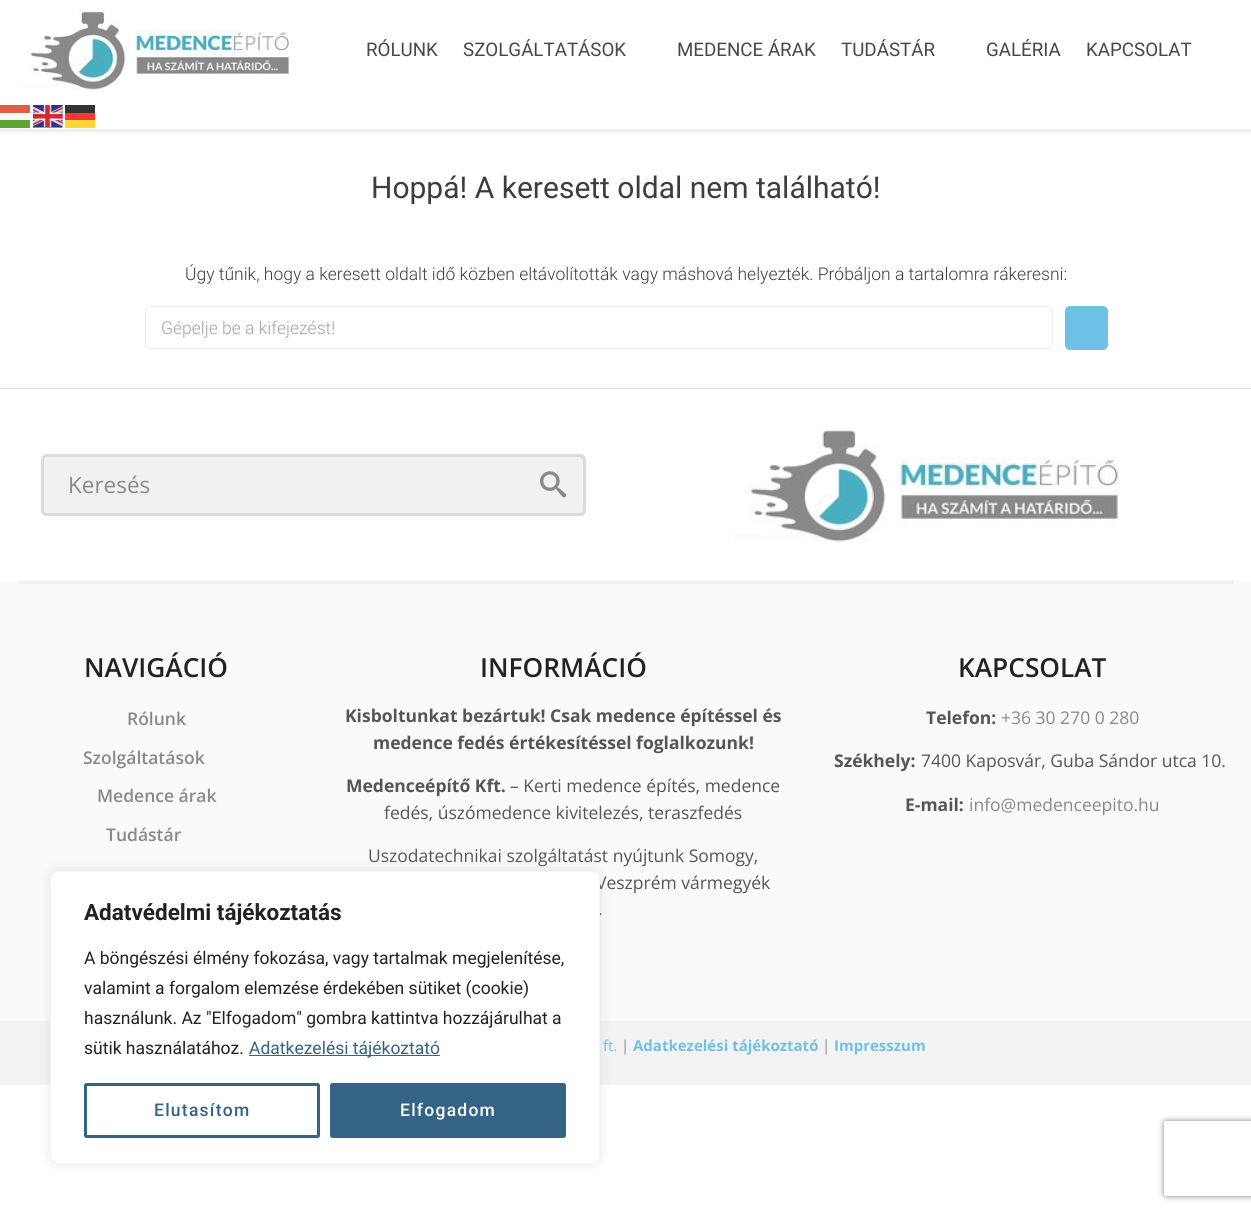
#include <cairo.h>
#include <math.h>
#include <stddef.h>

typedef struct { const char *family; double size; int italic, bold; unsigned color; } style_t;
static cairo_t *ctx;

static void ink(unsigned color) {
    cairo_set_source_rgb(ctx, (color >> 16) / 255.0, (color >> 8 & 255) / 255.0, (color & 255) / 255.0);
}

static void write(double x, double y, const char *s, const style_t *st) {
    cairo_select_font_face(ctx, st->family, st->italic ? CAIRO_FONT_SLANT_ITALIC : CAIRO_FONT_SLANT_NORMAL,
        st->bold ? CAIRO_FONT_WEIGHT_BOLD : CAIRO_FONT_WEIGHT_NORMAL);
    cairo_set_font_size(ctx, st->size);
    ink(st->color);
    cairo_move_to(ctx, x, y);
    cairo_show_text(ctx, s);
}

static void write_spaced(double x, double y, const char *s, double letter, double word) {
    cairo_move_to(ctx, x, y);
    while (*s) {
        char ch[5] = {0};
        int n = 0;
        do ch[n++] = *s++; while ((*s & 0xC0) == 0x80);
        cairo_show_text(ctx, ch);
        cairo_rel_move_to(ctx, letter + word * (*ch == ' '), 0);
    }
}

static void block(double x, double y, double w, double h, unsigned color) {
    ink(color);
    cairo_rectangle(ctx, x, y, w, h);
    cairo_fill(ctx);
}

static void round_path(double x, double y, double w, double h, double r) {
    cairo_new_sub_path(ctx);
    cairo_arc(ctx, x + w - r, y + h - r, r, 0, M_PI / 2);
    cairo_arc(ctx, x + r, y + h - r, r, M_PI / 2, M_PI);
    cairo_arc(ctx, x + r, y + r, r, M_PI, 1.5 * M_PI);
    cairo_arc(ctx, x + w - r, y + r, r, 1.5 * M_PI, 2 * M_PI);
    cairo_close_path(ctx);
}

static void blur_box(double x, double y, double w, double h, double r, double blur, double alpha) {
    cairo_push_group_with_content(ctx, CAIRO_CONTENT_ALPHA);
    cairo_set_operator(ctx, CAIRO_OPERATOR_SOURCE);
    for (int i = 15; i >= -15 && fmin(w, h) + blur * i / 3 > 0; i -= 2) {
        double e = blur * i / 6;
        cairo_set_source_rgba(ctx, 0, 0, 0, alpha * erfc((i - 1) / 8.5) / 2);
        round_path(x - e, y - e, w + 2 * e, h + 2 * e, fmax(0, fmin(r + e + blur * .6, fmin(w, h) / 2 + e)));
        cairo_fill(ctx);
    }
    cairo_pattern_t *soft = cairo_pop_group(ctx);
    cairo_mask(ctx, soft);
    cairo_pattern_destroy(soft);
}

static void paste(const char *path, double x, double y, double w, double h) {
    cairo_surface_t *image = cairo_image_surface_create_from_png(path);
    cairo_save(ctx);
    cairo_set_source_surface(ctx, image, x, y);
    cairo_rectangle(ctx, x, y, w, h);
    cairo_fill(ctx);
    cairo_restore(ctx);
    cairo_surface_destroy(image);
}

static const style_t s1 = {"Roboto", 18.75, 0, 0, 0x474747};
static const style_t s2 = {"Roboto", 30, 0, 0, 0x3b3d42};
static const style_t s3 = {"Roboto Light", 17.5, 0, 0, 0x3b3d42};
static const style_t s4 = {"Roboto Light", 17.5, 0, 0, 0xa1a2a4};
static const style_t s5 = {"Open Sans", 22.5, 0, 0, 0x898989};
static const style_t s6 = {"Open Sans SemiBold", 26.25, 0, 0, 0x222222};
static const style_t s7 = {"Open Sans SemiBold", 17.5, 0, 0, 0x898989};
static const style_t s8 = {"Open Sans", 17.5, 0, 1, 0x555555};
static const style_t s9 = {"Open Sans", 17.5, 0, 0, 0x555555};
static const style_t s10 = {"Open Sans", 17.5, 0, 0, 0x898989};
static const style_t s11 = {"Open Sans", 15, 0, 0, 0x6ec1e4};
static const style_t s12 = {"Open Sans", 15, 0, 0, 0x898989};
static const style_t s13 = {"Open Sans", 15, 0, 1, 0x6ec1e4};
static const style_t s14 = {"Roboto", 22.5, 0, 1, 0x222222};
static const style_t s15 = {"Roboto", 17.5, 0, 0, 0x222222};
static const style_t s16 = {"Roboto", 17.5, 0, 0, 0x356386};

int main(void) {
    cairo_surface_t *surface = cairo_image_surface_create(CAIRO_FORMAT_RGB24, 1251, 1213);
    ctx = cairo_create(surface);
    cairo_font_options_t *options = cairo_font_options_create();
    cairo_font_options_set_hint_metrics(options, CAIRO_HINT_METRICS_OFF);
    cairo_font_options_set_hint_style(options, CAIRO_HINT_STYLE_NONE);
    cairo_set_font_options(ctx, options);
    cairo_set_miter_limit(ctx, 4);
    ink(0xffffff);
    cairo_paint(ctx);
    block(0, 129, 1251, 3, 0xf0f0f0);
    paste("pic1.png", 19, 8, 270, 82);
    write(366, 56, "RÓLUNK", &s1);
    write(463, 56, "SZOLGÁLTATÁSOK", &s1);
    write(677, 56, "MEDENCE ÁRAK", &s1);
    write(841, 56, "TUDÁSTÁR", &s1);
    write(986, 56, "GALÉRIA", &s1);
    write(1086, 56, "KAPCSOLAT", &s1);
    block(0, 105, 30, 8, 0xdd5d45);
    paste("pic2.png", 33, 105, 30, 23);
    block(65, 105, 30, 8, 0x333333);
    block(65, 113, 30, 7, 0xff3333);
    block(0, 120, 30, 8, 0x60a433);
    block(65, 120, 30, 8, 0xffd633);
    write(371, 198, "Hoppá! A keresett oldal nem található!", &s2);
    write(185, 280, "Úgy tűnik, hogy a keresett oldalt idő közben eltávolították vagy máshová helyezték. Próbáljon a tartalomra rákeresni:", &s3);
    round_path(145.5, 306.5, 907, 42, 4.5);
    ink(0xebeced);
    cairo_set_line_width(ctx, 1);
    cairo_stroke(ctx);
    write(161, 334, "Gépelje be a kifejezést!", &s4);
    ink(0x6ec1e4);
    round_path(1065, 306, 43, 44, 5);
    cairo_fill(ctx);
    block(0, 388, 1251, 1, 0xd9d9d9);
    ink(0xf1f1f1);
    round_path(42.5, 455.5, 542, 59, 4.5);
    cairo_fill_preserve(ctx);
    ink(0xdbdbdb);
    cairo_set_line_width(ctx, 3);
    cairo_stroke(ctx);
    write(68, 493, "Keresés", &s5);
    paste("pic3.png", 540, 471, 26, 27);
    paste("pic4.png", 734, 429, 384, 113);
    block(0, 581, 1251, 440, 0xfafafa);
    block(19, 581, 1214, 3, 0xf0f0f0);
    write(84, 677, "NAVIGÁCIÓ", &s6);
    write(127, 725, "Rólunk", &s7);
    write(83, 764, "Szolgáltatások", &s7);
    write(97, 802, "Medence árak", &s7);
    write(106, 841, "Tudástár", &s7);
    write(480, 677, "INFORMÁCIÓ", &s6);
    write(345, 722, "Kisboltunkat bezártuk! Csak medence építéssel és", &s8);
    write(373, 749, "medence fedés értékesítéssel foglalkozunk!", &s8);
    write(346, 792, "Medenceépítő Kft.", &s8);
    write(510, 792, "– Kerti medence építés, medence", &s9);
    write(384, 819, "fedés, úszómedence kivitelezés, teraszfedés", &s9);
    write(368, 862, "Uszodatechnikai szolgáltatást nyújtunk Somogy,", &s9);
    write(596, 889, "Veszprém vármegyék", &s9);
    write(598, 915, ".", &s9);
    write(958, 677, "KAPCSOLAT", &s6);
    write(926, 724, "Telefon:", &s8);
    write(1001, 724, "+36 30 270 0 280", &s10);
    write(834, 767, "Székhely:", &s8);
    write(921, 767, "7400 Kaposvár, Guba Sándor utca 10.", &s9);
    write(905, 811, "E-mail:", &s8);
    write(969, 811, "info@medenceepito.hu", &s10);
    block(0, 1021, 1251, 64, 0xf3f3f3);
    write(603, 1051, "ft.", &s11);
    write(621, 1051, "|", &s12);
    write(633, 1051, "Adatkezelési tájékoztató", &s13);
    write(822, 1051, "|", &s12);
    write(834, 1051, "Impresszum", &s13);
    ink(0xacabab);
    blur_box(50, 870, 550, 293, 8, 6, 0.3);
    ink(0xffffff);
    round_path(50.5, 871.5, 549, 292, 7.5);
    cairo_fill_preserve(ctx);
    ink(0xf4f4f4);
    cairo_set_line_width(ctx, 1);
    cairo_stroke(ctx);
    write(84, 920, "Adatvédelmi tájékoztatás", &s14);
    write(84, 964, "A böngészési élmény fokozása, vagy tartalmak megjelenítése,", &s15);
    write(84, 994, "valamint a forgalom elemzése érdekében sütiket (cookie)", &s15);
    write(84, 1024, "használunk. Az \"Elfogadom\" gombra kattintva hozzájárulhat a", &s15);
    write(84, 1054, "sütik használatához.", &s15);
    block(249, 1055, 191, 1, 0x356386);
    write(249, 1054, "Adatkezelési tájékoztató", &s16);
    round_path(85.5, 1084.5, 233, 52, 1);
    cairo_set_line_width(ctx, 3);
    cairo_stroke(ctx);
    cairo_select_font_face(ctx, "Roboto Medium", CAIRO_FONT_SLANT_NORMAL, CAIRO_FONT_WEIGHT_NORMAL);
    write_spaced(154, 1116, "Elutasítom", 1.25, 0);
    round_path(331.5, 1084.5, 233, 52, 1);
    cairo_fill_preserve(ctx);
    cairo_stroke(ctx);
    ink(0xffffff);
    write_spaced(400, 1116, "Elfogadom", 1.25, 0);
    cairo_save(ctx);
    cairo_set_fill_rule(ctx, CAIRO_FILL_RULE_EVEN_ODD);
    cairo_new_path(ctx);
    cairo_move_to(ctx, 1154, 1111);
    cairo_line_to(ctx, 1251, 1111);
    cairo_line_to(ctx, 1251, 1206);
    cairo_line_to(ctx, 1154, 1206);
    cairo_close_path(ctx);
    cairo_move_to(ctx, 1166.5, 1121);
    cairo_line_to(ctx, 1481.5, 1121);
    cairo_curve_to(ctx, 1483, 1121, 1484, 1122, 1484, 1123.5);
    cairo_line_to(ctx, 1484, 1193.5);
    cairo_curve_to(ctx, 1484, 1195, 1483, 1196, 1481.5, 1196);
    cairo_line_to(ctx, 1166.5, 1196);
    cairo_curve_to(ctx, 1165, 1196, 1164, 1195, 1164, 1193.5);
    cairo_line_to(ctx, 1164, 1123.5);
    cairo_curve_to(ctx, 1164, 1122, 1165, 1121, 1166.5, 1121);
    cairo_close_path(ctx);
    cairo_clip(ctx);
    ink(0x808080);
    blur_box(1164, 1121, 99, 75, 2.5, 3, 1);
    cairo_restore(ctx);
    cairo_surface_write_to_png(surface, "screenshot.png");
    cairo_font_options_destroy(options);
    cairo_destroy(ctx);
    cairo_surface_destroy(surface);
    return 0;
}
